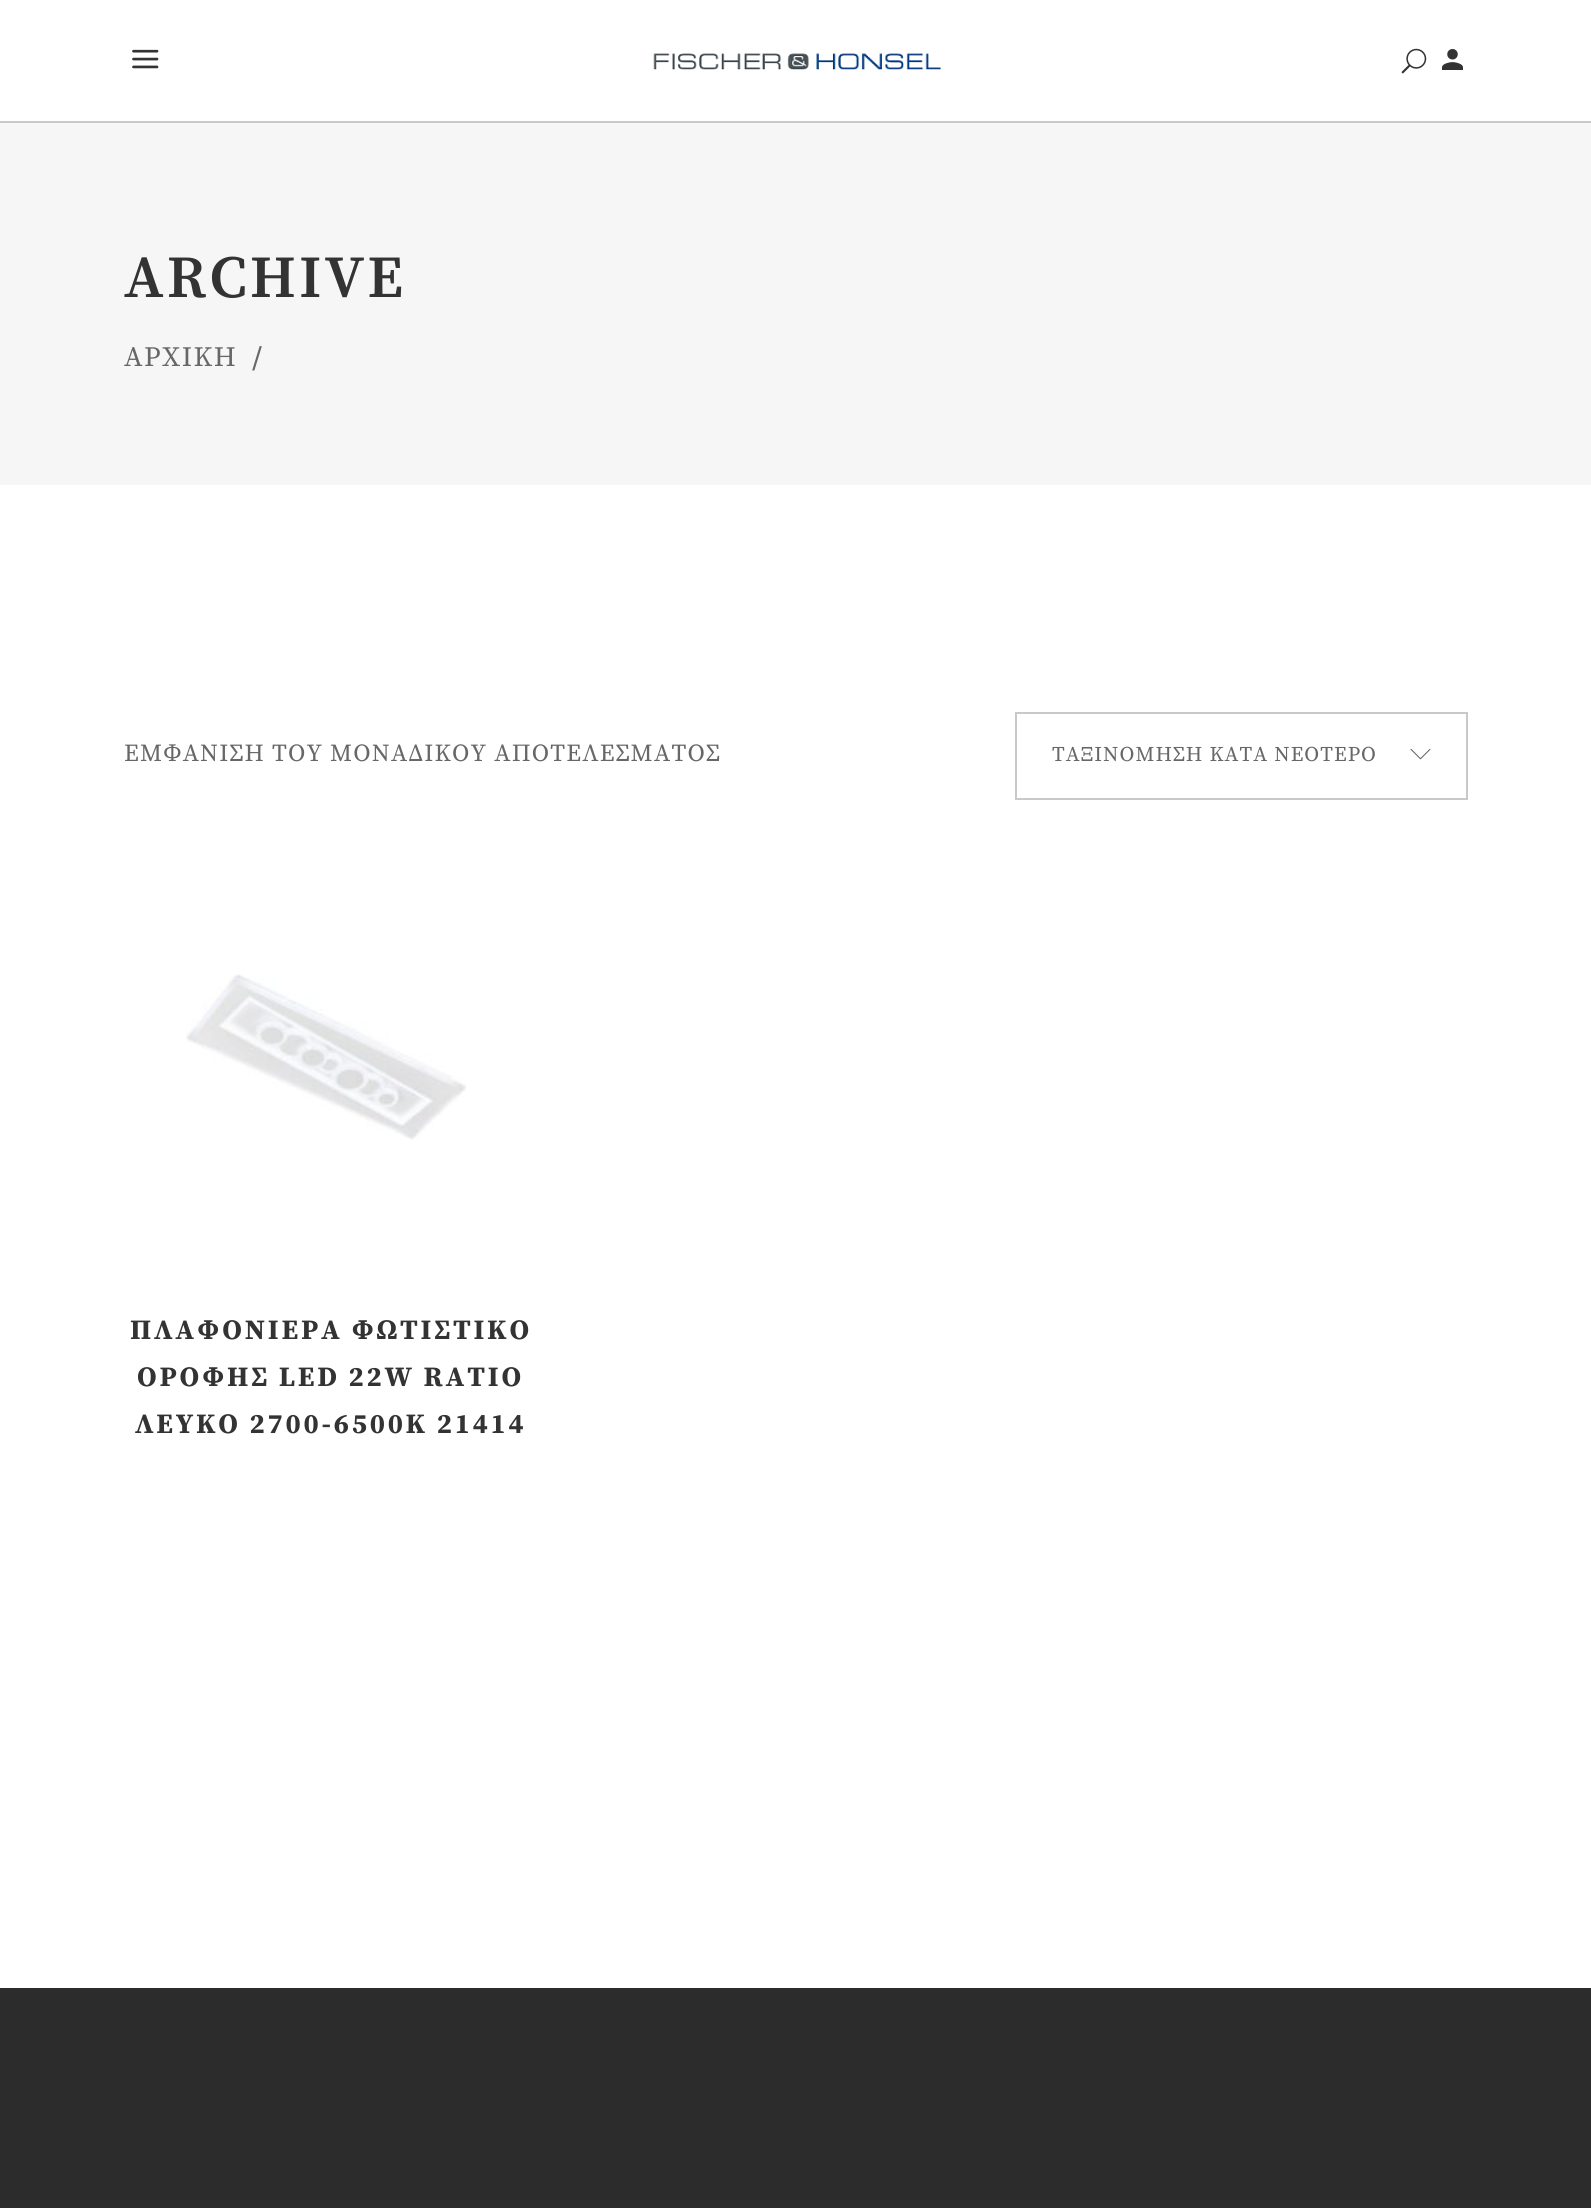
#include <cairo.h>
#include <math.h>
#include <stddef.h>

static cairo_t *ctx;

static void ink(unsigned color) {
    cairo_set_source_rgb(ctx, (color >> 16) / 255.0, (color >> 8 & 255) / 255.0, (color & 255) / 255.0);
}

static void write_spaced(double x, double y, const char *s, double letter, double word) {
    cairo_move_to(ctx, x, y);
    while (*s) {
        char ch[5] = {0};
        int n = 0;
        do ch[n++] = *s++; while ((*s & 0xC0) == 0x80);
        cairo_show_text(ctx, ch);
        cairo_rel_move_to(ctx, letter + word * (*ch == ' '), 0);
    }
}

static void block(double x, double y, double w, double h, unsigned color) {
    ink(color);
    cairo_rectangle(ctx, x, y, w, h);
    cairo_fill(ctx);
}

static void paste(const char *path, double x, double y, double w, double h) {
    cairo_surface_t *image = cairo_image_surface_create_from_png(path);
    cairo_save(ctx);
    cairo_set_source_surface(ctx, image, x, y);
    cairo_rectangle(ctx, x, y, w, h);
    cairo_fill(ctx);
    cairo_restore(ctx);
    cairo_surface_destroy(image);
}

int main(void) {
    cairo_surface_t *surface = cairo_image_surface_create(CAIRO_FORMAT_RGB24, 1591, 2208);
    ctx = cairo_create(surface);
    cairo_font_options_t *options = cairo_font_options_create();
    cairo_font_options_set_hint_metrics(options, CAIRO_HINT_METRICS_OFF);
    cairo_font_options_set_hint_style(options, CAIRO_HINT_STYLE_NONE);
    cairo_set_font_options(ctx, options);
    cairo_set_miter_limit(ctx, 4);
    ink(0xffffff);
    cairo_paint(ctx);
    block(0, 121, 1591, 2, 0xc9c9c9);
    paste("pic1.png", 132, 49, 27, 20);
    paste("pic2.png", 653, 53, 288, 17);
    paste("pic3.png", 1401, 48, 26, 26);
    paste("pic4.png", 1442, 49, 21, 21);
    block(0, 123, 1591, 362, 0xf6f6f6);
    cairo_select_font_face(ctx, "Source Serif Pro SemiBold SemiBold", CAIRO_FONT_SLANT_NORMAL, CAIRO_FONT_WEIGHT_NORMAL);
    cairo_set_font_size(ctx, 59.5);
    ink(0x333333);
    write_spaced(124, 297, "ARCHIVE", 3, 0);
    cairo_select_font_face(ctx, "Source Serif Pro", CAIRO_FONT_SLANT_NORMAL, CAIRO_FONT_WEIGHT_NORMAL);
    cairo_set_font_size(ctx, 28);
    ink(0x676767);
    write_spaced(124, 366, "ΑΡΧΙΚΗ", 1.5, 0);
    cairo_select_font_face(ctx, "Source Serif Pro SemiBold SemiBold", CAIRO_FONT_SLANT_NORMAL, CAIRO_FONT_WEIGHT_NORMAL);
    write_spaced(252, 366, "/", 1.5, 0);
    cairo_select_font_face(ctx, "Source Serif Pro", CAIRO_FONT_SLANT_NORMAL, CAIRO_FONT_WEIGHT_NORMAL);
    cairo_set_font_size(ctx, 24.5);
    write_spaced(124, 761, "ΕΜΦΑΝΙΣΗ ΤΟΥ ΜΟΝΑΔΙΚΟΥ ΑΠΟΤΕΛΕΣΜΑΤΟΣ", 1.2, 0);
    cairo_rectangle(ctx, 1016, 713, 451, 86);
    ink(0xc9c9c9);
    cairo_stroke(ctx);
    cairo_set_font_size(ctx, 21);
    ink(0x676767);
    write_spaced(1052, 761, "ΤΑΞΙΝΟΜΗΣΗ ΚΑΤΑ ΝΕΟΤΕΡΟ", 1.05, 0);
    paste("pic5.png", 1410, 748, 21, 12);
    paste("pic6.png", 186, 974, 280, 166);
    cairo_select_font_face(ctx, "Source Serif Pro", CAIRO_FONT_SLANT_NORMAL, CAIRO_FONT_WEIGHT_BOLD);
    cairo_set_font_size(ctx, 28);
    ink(0x333333);
    write_spaced(130, 1339, "ΠΛΑΦΟΝΙΕΡΑ ΦΩΤΙΣΤΙΚΟ", 2.8, 0);
    write_spaced(137, 1386, "ΟΡΟΦΗΣ LED 22W RATIO", 2.8, 0);
    write_spaced(135, 1433, "ΛΕΥΚΟ 2700-6500K 21414", 2.8, 0);
    block(0, 1988, 1591, 220, 0x2c2c2c);
    cairo_surface_write_to_png(surface, "screenshot.png");
    cairo_font_options_destroy(options);
    cairo_destroy(ctx);
    cairo_surface_destroy(surface);
    return 0;
}
